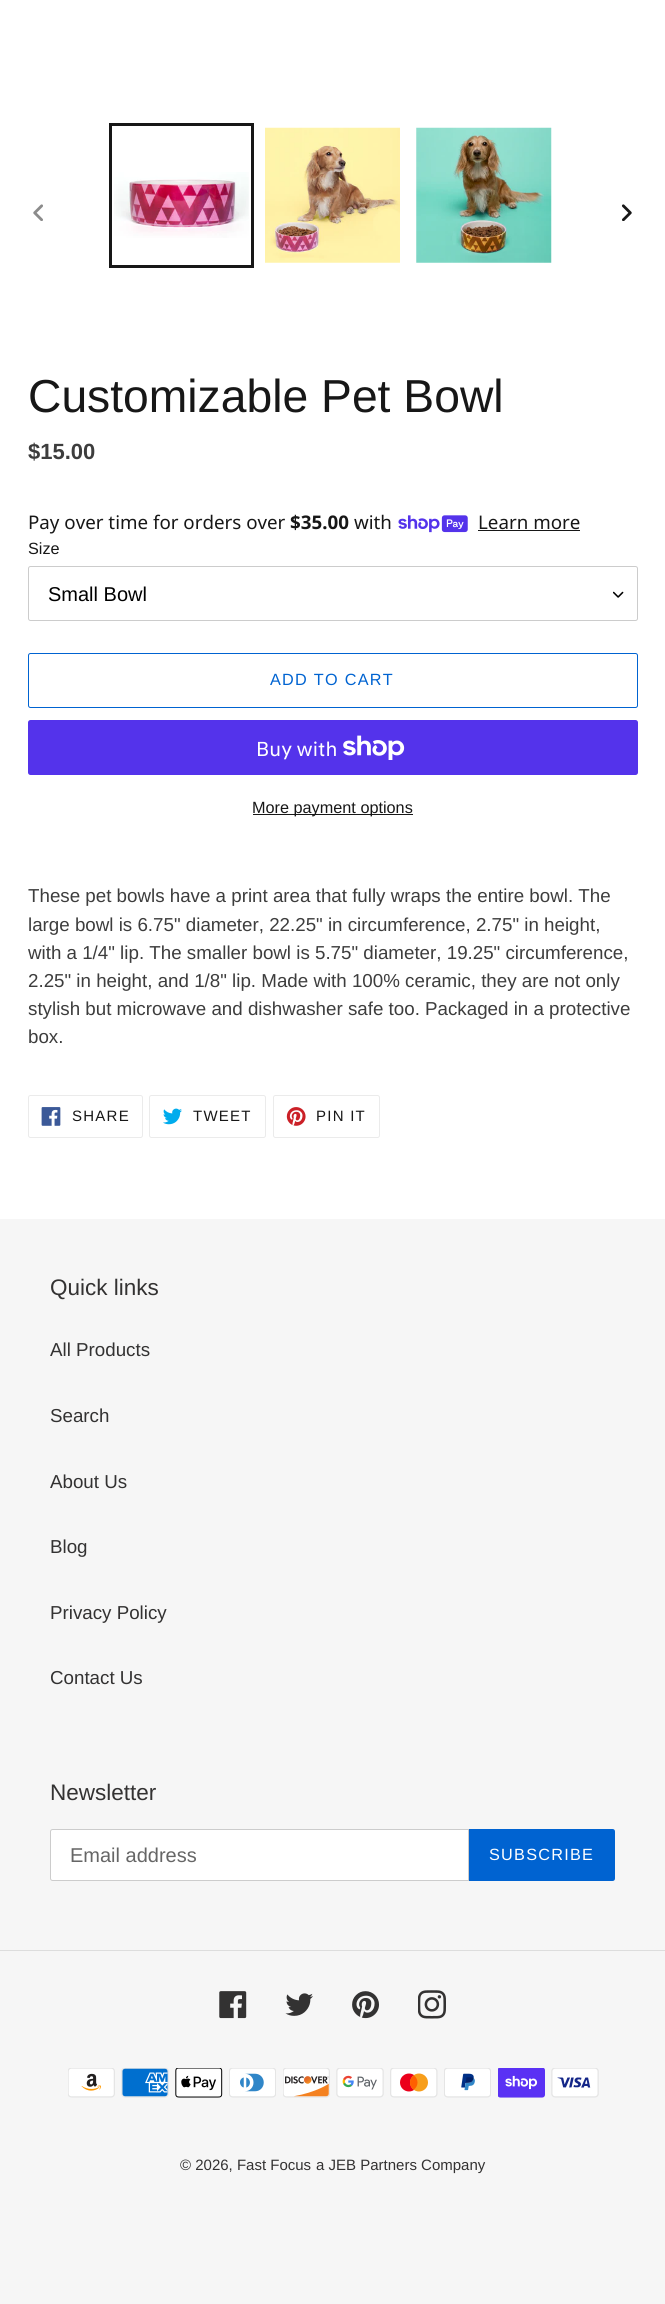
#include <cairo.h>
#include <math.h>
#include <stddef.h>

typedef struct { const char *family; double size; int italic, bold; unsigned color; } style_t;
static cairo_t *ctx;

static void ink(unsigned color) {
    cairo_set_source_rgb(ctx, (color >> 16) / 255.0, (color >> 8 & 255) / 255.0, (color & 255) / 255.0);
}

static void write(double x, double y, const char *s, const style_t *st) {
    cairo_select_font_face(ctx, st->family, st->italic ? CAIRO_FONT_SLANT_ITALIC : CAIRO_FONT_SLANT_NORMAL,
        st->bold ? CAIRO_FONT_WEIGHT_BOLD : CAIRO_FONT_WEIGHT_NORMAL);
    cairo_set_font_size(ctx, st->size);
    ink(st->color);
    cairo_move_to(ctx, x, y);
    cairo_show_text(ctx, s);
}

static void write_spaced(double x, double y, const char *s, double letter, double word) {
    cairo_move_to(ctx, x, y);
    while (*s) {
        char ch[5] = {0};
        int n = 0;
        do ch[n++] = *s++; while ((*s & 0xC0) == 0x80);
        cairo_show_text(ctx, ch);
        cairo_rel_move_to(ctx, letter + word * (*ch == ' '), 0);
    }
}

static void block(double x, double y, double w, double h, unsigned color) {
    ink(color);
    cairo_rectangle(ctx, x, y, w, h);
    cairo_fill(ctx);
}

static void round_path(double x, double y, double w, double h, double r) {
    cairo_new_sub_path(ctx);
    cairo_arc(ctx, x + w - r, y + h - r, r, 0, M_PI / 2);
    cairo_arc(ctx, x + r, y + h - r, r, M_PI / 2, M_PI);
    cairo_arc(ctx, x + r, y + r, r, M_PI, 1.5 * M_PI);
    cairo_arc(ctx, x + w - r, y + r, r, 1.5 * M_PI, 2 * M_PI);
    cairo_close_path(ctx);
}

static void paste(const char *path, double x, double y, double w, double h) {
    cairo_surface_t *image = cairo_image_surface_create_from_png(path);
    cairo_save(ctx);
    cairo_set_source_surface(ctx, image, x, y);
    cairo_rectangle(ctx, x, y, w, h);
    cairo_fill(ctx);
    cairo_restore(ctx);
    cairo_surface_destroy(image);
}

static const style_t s1 = {"Liberation Sans", 46.25, 0, 0, 0x171717};
static const style_t s2 = {"Liberation Sans", 22, 0, 1, 0x3d3d3d};
static const style_t s3 = {"Noto Sans", 18.75, 0, 0, 0x171717};
static const style_t s4 = {"Noto Sans", 18.75, 0, 1, 0x171717};
static const style_t s5 = {"Liberation Sans", 16.25, 0, 0, 0x171717};
static const style_t s6 = {"Liberation Sans", 20, 0, 0, 0x000000};
static const style_t s7 = {"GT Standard", 20, 0, 0, 0xffffff};
static const style_t s8 = {"Liberation Sans", 18.75, 0, 0, 0x3d3d3d};
static const style_t s9 = {"Liberation Sans", 22.5, 0, 0, 0x333232};
static const style_t s10 = {"Liberation Sans", 18.75, 0, 0, 0x333232};
static const style_t s11 = {"Liberation Sans", 20, 0, 0, 0x666666};
static const style_t s12 = {"Liberation Sans", 15, 0, 0, 0x333232};

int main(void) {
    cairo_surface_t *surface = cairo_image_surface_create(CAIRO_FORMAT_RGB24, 665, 2304);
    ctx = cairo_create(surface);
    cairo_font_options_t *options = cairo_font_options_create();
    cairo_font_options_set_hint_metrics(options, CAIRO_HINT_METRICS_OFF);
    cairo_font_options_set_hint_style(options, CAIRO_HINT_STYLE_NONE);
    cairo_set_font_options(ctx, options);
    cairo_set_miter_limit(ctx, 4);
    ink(0xffffff);
    cairo_paint(ctx);
    paste("pic1.png", 33, 204, 10, 17);
    cairo_rectangle(ctx, 110.5, 124.5, 142, 142);
    ink(0x171717);
    cairo_set_line_width(ctx, 3);
    cairo_stroke(ctx);
    paste("pic2.png", 114, 172, 135, 66);
    paste("pic3.png", 265, 127, 135, 136);
    paste("pic4.png", 416, 127, 136, 136);
    paste("pic5.png", 621, 204, 11, 17);
    write(28, 412, "Customizable Pet Bowl", &s1);
    write(28, 459, "$15.00", &s2);
    write(28, 529, "Pay over time for orders over", &s3);
    write(290, 529, "$35.00", &s4);
    write(354, 529, "with", &s3);
    paste("pic6.png", 398, 515, 70, 18);
    write(478, 529, "Learn more", &s3);
    block(478, 530, 102, 1, 0x171717);
    write(28, 554, "Size", &s5);
    paste("pic7.png", 613, 591, 11, 7);
    round_path(28.5, 566.5, 609, 54, 2);
    ink(0xcccccc);
    cairo_set_line_width(ctx, 1);
    cairo_stroke(ctx);
    write(48, 601, "Small Bowl", &s6);
    round_path(28.5, 653.5, 609, 54, 2);
    ink(0x0063d1);
    cairo_stroke(ctx);
    cairo_set_font_size(ctx, 16.25);
    write_spaced(270, 685, "ADD TO CART", 1.25, 0);
    ink(0x5433eb);
    round_path(28, 720, 610, 55, 2.5);
    cairo_fill(ctx);
    write(256, 756, "Buy with", &s7);
    paste("pic8.png", 343, 735, 62, 25);
    block(253, 814, 160, 1, 0x171717);
    write(252, 813, "More payment options", &s5);
    write(28, 902, "These pet bowls have a print area that fully wraps the entire bowl. The", &s8);
    write(28, 931, "large bowl is 6.75\" diameter, 22.25\" in circumference, 2.75\" in height,", &s8);
    write(28, 959, "with a 1/4\" lip. The smaller bowl is 5.75\" diameter, 19.25\" circumference,", &s8);
    write(28, 987, "2.25\" in height, and 1/8\" lip. Made with 100% ceramic, they are not only", &s8);
    write(28, 1015, "stylish but microwave and dishwasher safe too. Packaged in a protective", &s8);
    write(28, 1043, "box.", &s8);
    round_path(28.5, 1095.5, 114, 42, 2);
    ink(0xebebeb);
    cairo_stroke(ctx);
    paste("pic9.png", 41, 1107, 20, 19);
    cairo_set_font_size(ctx, 15);
    ink(0x171717);
    write_spaced(72, 1121, "SHARE", 1.25, 0);
    round_path(149.5, 1095.5, 116, 42, 2);
    ink(0xebebeb);
    cairo_stroke(ctx);
    paste("pic10.png", 163, 1108, 19, 17);
    ink(0x171717);
    write_spaced(193, 1121, "TWEET", 1.25, 0);
    round_path(273.5, 1095.5, 106, 42, 2);
    ink(0xebebeb);
    cairo_stroke(ctx);
    paste("pic11.png", 286, 1107, 20, 19);
    ink(0x171717);
    write_spaced(316, 1121, "PIN IT", 1.25, 0);
    block(0, 1219, 665, 1085, 0xf6f6f6);
    write(50, 1295, "Quick links", &s9);
    write(50, 1356, "All Products", &s10);
    write(50, 1422, "Search", &s10);
    write(50, 1488, "About Us", &s10);
    write(50, 1553, "Blog", &s10);
    write(50, 1619, "Privacy Policy", &s10);
    write(50, 1684, "Contact Us", &s10);
    write(50, 1800, "Newsletter", &s9);
    ink(0xffffff);
    cairo_new_path(ctx);
    cairo_move_to(ctx, 52.5, 1829.5);
    cairo_line_to(ctx, 468.5, 1829.5);
    cairo_line_to(ctx, 468.5, 1880.5);
    cairo_line_to(ctx, 52.5, 1880.5);
    cairo_curve_to(ctx, 51.5, 1880.5, 50.5, 1879.5, 50.5, 1878.5);
    cairo_line_to(ctx, 50.5, 1831.5);
    cairo_curve_to(ctx, 50.5, 1830.5, 51.5, 1829.5, 52.5, 1829.5);
    cairo_close_path(ctx);
    cairo_fill_preserve(ctx);
    ink(0xcccccc);
    cairo_stroke(ctx);
    write(70, 1862, "Email address", &s11);
    ink(0x0063d1);
    cairo_new_path(ctx);
    cairo_move_to(ctx, 469, 1829);
    cairo_line_to(ctx, 612.5, 1829);
    cairo_curve_to(ctx, 614, 1829, 615, 1830, 615, 1831.5);
    cairo_line_to(ctx, 615, 1878.5);
    cairo_curve_to(ctx, 615, 1880, 614, 1881, 612.5, 1881);
    cairo_line_to(ctx, 469, 1881);
    cairo_close_path(ctx);
    cairo_fill(ctx);
    cairo_set_font_size(ctx, 16.25);
    ink(0xffffff);
    write_spaced(489, 1860, "SUBSCRIBE", 1.25, 0);
    block(0, 1950, 665, 1, 0xdddddd);
    paste("pic12.png", 219, 1991, 28, 28);
    paste("pic13.png", 285, 1993, 28, 23);
    paste("pic14.png", 352, 1991, 27, 28);
    paste("pic15.png", 418, 1990, 28, 29);
    paste("pic16.png", 68, 2068, 47, 30);
    paste("pic17.png", 121, 2068, 48, 30);
    paste("pic18.png", 175, 2068, 48, 30);
    paste("pic19.png", 229, 2068, 47, 30);
    paste("pic20.png", 283, 2068, 47, 30);
    paste("pic21.png", 336, 2068, 48, 30);
    paste("pic22.png", 390, 2068, 48, 30);
    paste("pic23.png", 444, 2068, 47, 30);
    paste("pic24.png", 498, 2068, 47, 30);
    paste("pic25.png", 551, 2068, 48, 30);
    write(180, 2170, "© 2026, Fast Focus", &s12);
    write(316, 2170, "a JEB Partners Company", &s12);
    cairo_surface_write_to_png(surface, "screenshot.png");
    cairo_font_options_destroy(options);
    cairo_destroy(ctx);
    cairo_surface_destroy(surface);
    return 0;
}
